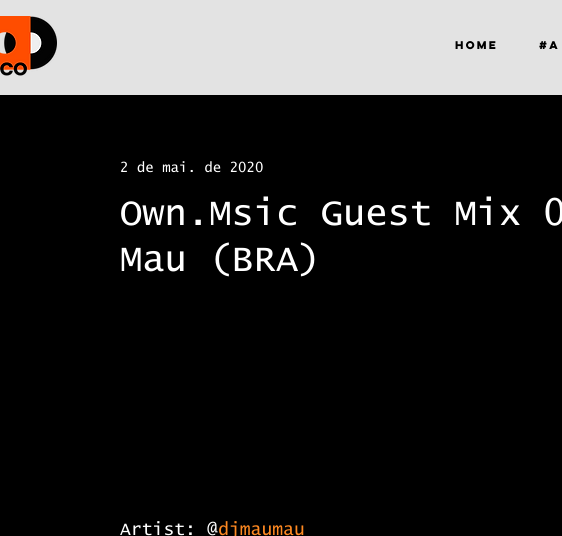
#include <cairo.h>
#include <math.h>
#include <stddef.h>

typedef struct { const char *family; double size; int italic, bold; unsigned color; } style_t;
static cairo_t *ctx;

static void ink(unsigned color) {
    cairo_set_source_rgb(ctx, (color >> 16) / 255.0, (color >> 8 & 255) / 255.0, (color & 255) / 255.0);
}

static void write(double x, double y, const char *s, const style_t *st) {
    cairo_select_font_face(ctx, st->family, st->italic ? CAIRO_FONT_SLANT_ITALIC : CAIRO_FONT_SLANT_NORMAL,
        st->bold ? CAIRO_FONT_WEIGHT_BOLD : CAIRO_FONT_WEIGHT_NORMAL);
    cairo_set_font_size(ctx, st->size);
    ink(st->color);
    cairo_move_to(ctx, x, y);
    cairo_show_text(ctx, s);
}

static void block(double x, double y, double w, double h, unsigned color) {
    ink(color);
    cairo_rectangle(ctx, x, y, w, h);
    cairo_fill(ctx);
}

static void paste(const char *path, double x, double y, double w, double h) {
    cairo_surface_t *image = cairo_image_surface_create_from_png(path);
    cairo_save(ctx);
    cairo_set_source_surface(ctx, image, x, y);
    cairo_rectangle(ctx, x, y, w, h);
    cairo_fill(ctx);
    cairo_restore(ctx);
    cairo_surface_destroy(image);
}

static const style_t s1 = {"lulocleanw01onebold", 10, 0, 1, 0x000000};
static const style_t s2 = {"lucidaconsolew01", 14, 0, 0, 0xffffff};
static const style_t s3 = {"lucidaconsolew01", 37, 0, 0, 0xffffff};
static const style_t s4 = {"lucidaconsolew01", 18, 0, 0, 0xffffff};
static const style_t s5 = {"lucidaconsolew01", 18, 0, 0, 0xff8921};

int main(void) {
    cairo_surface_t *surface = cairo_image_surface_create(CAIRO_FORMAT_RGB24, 562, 536);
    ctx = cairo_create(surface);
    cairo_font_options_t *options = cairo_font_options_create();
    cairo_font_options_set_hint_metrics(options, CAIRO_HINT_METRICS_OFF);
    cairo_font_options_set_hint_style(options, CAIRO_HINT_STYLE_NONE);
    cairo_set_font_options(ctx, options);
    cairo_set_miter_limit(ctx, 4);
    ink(0x000000);
    cairo_paint(ctx);
    block(0, 0, 562, 95, 0xe3e3e3);
    paste("pic1.png", 0, 16, 57, 60);
    write(455, 49, "HOME", &s1);
    write(539, 49, "#A", &s1);
    write(120, 172, "2 de mai. de 2020", &s2);
    write(120, 225, "Own.Msic Guest Mix 0", &s3);
    write(120, 271, "Mau (BRA)", &s3);
    write(120, 535, "Artist: @", &s4);
    write(218, 535, "djmaumau", &s5);
    cairo_surface_write_to_png(surface, "screenshot.png");
    cairo_font_options_destroy(options);
    cairo_destroy(ctx);
    cairo_surface_destroy(surface);
    return 0;
}
